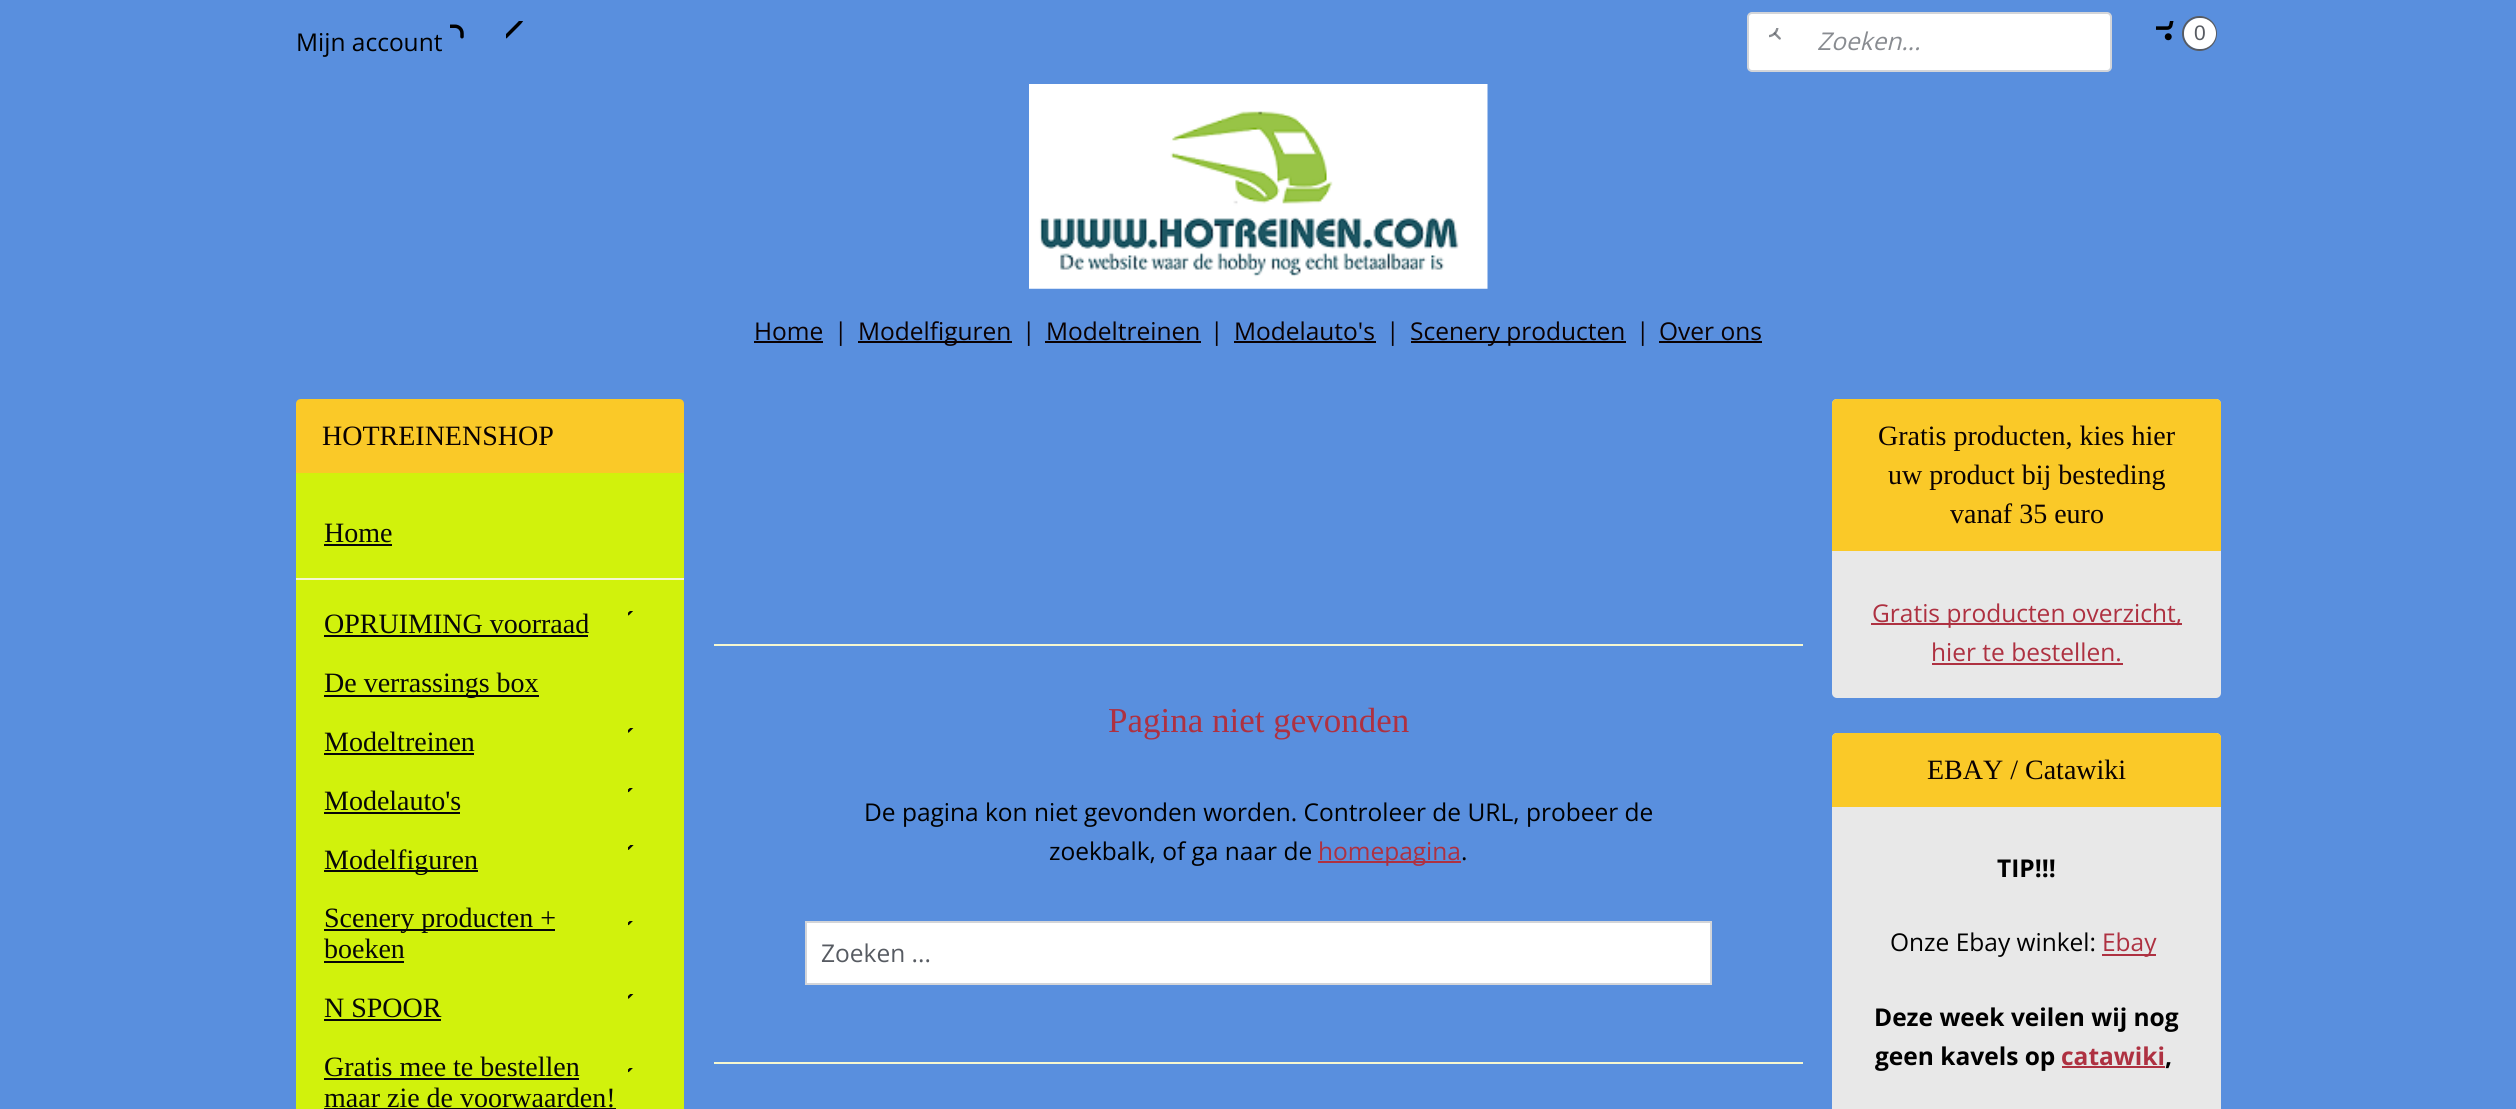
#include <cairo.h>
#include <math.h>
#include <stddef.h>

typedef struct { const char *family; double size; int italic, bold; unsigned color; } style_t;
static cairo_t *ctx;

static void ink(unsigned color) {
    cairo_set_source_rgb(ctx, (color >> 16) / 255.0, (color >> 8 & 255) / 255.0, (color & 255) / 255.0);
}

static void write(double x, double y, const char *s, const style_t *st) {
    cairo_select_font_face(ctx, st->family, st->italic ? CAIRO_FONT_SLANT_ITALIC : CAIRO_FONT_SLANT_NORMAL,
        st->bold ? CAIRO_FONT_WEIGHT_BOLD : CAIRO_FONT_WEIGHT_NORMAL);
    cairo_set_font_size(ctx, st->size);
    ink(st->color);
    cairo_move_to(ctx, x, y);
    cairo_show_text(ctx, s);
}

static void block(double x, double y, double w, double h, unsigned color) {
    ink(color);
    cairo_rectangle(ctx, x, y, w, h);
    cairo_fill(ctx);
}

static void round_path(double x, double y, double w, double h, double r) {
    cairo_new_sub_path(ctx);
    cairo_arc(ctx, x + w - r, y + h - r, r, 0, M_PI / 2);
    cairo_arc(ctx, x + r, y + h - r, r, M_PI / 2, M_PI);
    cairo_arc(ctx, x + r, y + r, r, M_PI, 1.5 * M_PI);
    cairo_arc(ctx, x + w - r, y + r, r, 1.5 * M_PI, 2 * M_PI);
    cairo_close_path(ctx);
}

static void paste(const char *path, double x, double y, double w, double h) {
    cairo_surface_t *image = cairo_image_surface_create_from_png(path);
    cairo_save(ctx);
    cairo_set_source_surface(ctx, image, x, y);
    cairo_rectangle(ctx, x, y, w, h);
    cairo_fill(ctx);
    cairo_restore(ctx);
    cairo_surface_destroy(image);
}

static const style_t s1 = {"Open Sans", 24.5, 0, 0, 0x000000};
static const style_t s2 = {"Open Sans", 24.5, 1, 0, 0x898c91};
static const style_t s3 = {"Liberation Sans", 21, 0, 0, 0x575b62};
static const style_t s4 = {"Open Sans", 24.5, 0, 0, 0x0a0102};
static const style_t s5 = {"Tinos", 28, 0, 0, 0x0a0102};
static const style_t s6 = {"Tinos", 28, 0, 0, 0x070707};
static const style_t s7 = {"Tinos", 35, 0, 0, 0xae3141};
static const style_t s8 = {"Open Sans", 24.5, 0, 0, 0xae3141};
static const style_t s9 = {"Open Sans", 24.5, 0, 0, 0x575b62};
static const style_t s10 = {"Open Sans", 24.5, 0, 1, 0x000000};
static const style_t s11 = {"Open Sans", 24.5, 0, 1, 0xae3141};

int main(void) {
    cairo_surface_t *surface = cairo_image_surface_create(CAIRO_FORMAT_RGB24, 2516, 1109);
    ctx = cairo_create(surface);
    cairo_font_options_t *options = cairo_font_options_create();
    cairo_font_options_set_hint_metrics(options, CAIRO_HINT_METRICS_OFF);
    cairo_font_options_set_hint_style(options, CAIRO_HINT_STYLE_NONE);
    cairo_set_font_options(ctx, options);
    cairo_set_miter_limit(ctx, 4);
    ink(0x598fde);
    cairo_paint(ctx);
    paste("pic1.png", 506, 21, 18, 18);
    paste("pic2.png", 450, 24, 14, 15);
    write(296, 51, "Mijn account", &s1);
    ink(0xffffff);
    round_path(1748, 13, 363, 58, 4);
    cairo_fill_preserve(ctx);
    ink(0xd3d5d9);
    cairo_stroke(ctx);
    paste("pic3.png", 1769, 28, 12, 12);
    write(1817, 50, "Zoeken...", &s2);
    paste("pic4.png", 2156, 21, 18, 20);
    cairo_arc(ctx, 2199.5, 33.5, 16.5, 0, 2 * M_PI);
    ink(0x575b62);
    cairo_stroke(ctx);
    ink(0xffffff);
    round_path(2184, 18, 32, 31, 15.5);
    cairo_fill(ctx);
    write(2194, 40, "0", &s3);
    paste("pic5.png", 1029, 84, 459, 205);
    write(754, 340, "Home", &s4);
    block(754, 341, 69, 2, 0x0a0102);
    write(834, 340, "|", &s4);
    block(858, 341, 154, 2, 0x0a0102);
    write(858, 340, "Modelfiguren", &s4);
    write(1022, 340, "|", &s4);
    write(1046, 340, "Modeltreinen", &s4);
    block(1045, 341, 156, 2, 0x0a0102);
    write(1210, 340, "|", &s4);
    write(1234, 340, "Modelauto's", &s4);
    block(1234, 341, 142, 2, 0x0a0102);
    write(1386, 340, "|", &s4);
    block(1411, 341, 215, 2, 0x0a0102);
    write(1410, 340, "Scenery producten", &s4);
    write(1636, 340, "|", &s4);
    write(1659, 340, "Over ons", &s4);
    block(1659, 341, 103, 2, 0x0a0102);
    ink(0xfac928);
    cairo_new_path(ctx);
    cairo_move_to(ctx, 301, 399);
    cairo_line_to(ctx, 679, 399);
    cairo_curve_to(ctx, 682, 399, 684, 401, 684, 404);
    cairo_line_to(ctx, 684, 473);
    cairo_line_to(ctx, 296, 473);
    cairo_line_to(ctx, 296, 404);
    cairo_curve_to(ctx, 296, 401, 298, 399, 301, 399);
    cairo_close_path(ctx);
    cairo_fill(ctx);
    write(322, 445, "HOTREINENSHOP", &s5);
    block(296, 473, 388, 636, 0xd1f20c);
    write(324, 542, "Home", &s6);
    block(324, 544, 68, 2, 0x070707);
    block(296, 578, 388, 2, 0xf5f7d0);
    write(324, 633, "OPRUIMING voorraad", &s6);
    block(324, 635, 264, 2, 0x070707);
    paste("pic6.png", 628, 611, 5, 5);
    block(324, 695, 215, 2, 0x070707);
    write(324, 692, "De verrassings box", &s6);
    paste("pic7.png", 628, 728, 6, 5);
    write(324, 751, "Modeltreinen", &s6);
    block(324, 753, 150, 2, 0x070707);
    write(324, 810, "Modelauto's", &s6);
    block(324, 812, 136, 2, 0x070707);
    paste("pic8.png", 628, 788, 5, 5);
    paste("pic9.png", 628, 845, 6, 5);
    block(324, 870, 154, 2, 0x070707);
    write(324, 869, "Modelfiguren", &s6);
    block(324, 929, 231, 2, 0x070707);
    write(324, 927, "Scenery producten +", &s6);
    paste("pic8.png", 628, 921, 5, 5);
    write(324, 958, "boeken", &s6);
    block(324, 961, 80, 2, 0x070707);
    paste("pic7.png", 628, 994, 6, 5);
    write(324, 1017, "N SPOOR", &s6);
    block(324, 1019, 117, 2, 0x070707);
    write(324, 1076, "Gratis mee te bestellen", &s6);
    block(324, 1078, 255, 2, 0x070707);
    paste("pic8.png", 628, 1068, 5, 5);
    write(324, 1107, "maar zie de voorwaarden!", &s6);
    block(324, 1108, 292, 1, 0x070707);
    block(714, 644, 1089, 2, 0xf5f7d0);
    block(714, 1062, 1089, 2, 0xf5f7d0);
    write(1108, 732, "Pagina niet gevonden", &s7);
    write(864, 821, "De pagina kon niet gevonden worden. Controleer de URL, probeer de", &s1);
    write(1049, 860, "zoekbalk, of ga naar de", &s1);
    block(1318, 861, 143, 2, 0xae3141);
    write(1318, 860, "homepagina", &s8);
    write(1461, 860, ".", &s1);
    ink(0xffffff);
    cairo_rectangle(ctx, 806, 922, 905, 62);
    cairo_fill_preserve(ctx);
    ink(0xd3d5d9);
    cairo_stroke(ctx);
    write(821, 962, "Zoeken ...", &s9);
    ink(0xe8e8e8);
    round_path(1832, 399, 389, 299, 5);
    cairo_fill(ctx);
    ink(0xfac928);
    cairo_new_path(ctx);
    cairo_move_to(ctx, 1837, 399);
    cairo_line_to(ctx, 2216, 399);
    cairo_curve_to(ctx, 2219, 399, 2221, 401, 2221, 404);
    cairo_line_to(ctx, 2221, 551);
    cairo_line_to(ctx, 1832, 551);
    cairo_line_to(ctx, 1832, 404);
    cairo_curve_to(ctx, 1832, 401, 1834, 399, 1837, 399);
    cairo_close_path(ctx);
    cairo_fill(ctx);
    write(1878, 445, "Gratis producten, kies hier", &s5);
    write(1888, 484, "uw product bij besteding", &s5);
    write(1950, 523, "vanaf 35 euro", &s5);
    block(1871, 623, 311, 2, 0xae3141);
    write(1872, 622, "Gratis producten overzicht,", &s8);
    write(1931, 661, "hier te bestellen.", &s8);
    block(1932, 663, 191, 2, 0xae3141);
    ink(0xe8e8e8);
    round_path(1832, 733, 389, 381, 5);
    cairo_fill(ctx);
    ink(0xfac928);
    cairo_new_path(ctx);
    cairo_move_to(ctx, 1837, 733);
    cairo_line_to(ctx, 2216, 733);
    cairo_curve_to(ctx, 2219, 733, 2221, 735, 2221, 738);
    cairo_line_to(ctx, 2221, 807);
    cairo_line_to(ctx, 1832, 807);
    cairo_line_to(ctx, 1832, 738);
    cairo_curve_to(ctx, 1832, 735, 1834, 733, 1837, 733);
    cairo_close_path(ctx);
    cairo_fill(ctx);
    write(1927, 779, "EBAY / Catawiki", &s5);
    write(1997, 877, "TIP!!!", &s10);
    write(1890, 951, "Onze Ebay winkel:", &s1);
    block(2102, 954, 54, 2, 0xae3141);
    write(2102, 951, "Ebay", &s8);
    write(1874, 1026, "Deze week veilen wij nog", &s10);
    write(1875, 1065, "geen kavels op", &s10);
    write(2061, 1065, "catawiki", &s11);
    block(2062, 1066, 103, 2, 0xae3141);
    write(2165, 1065, ",", &s10);
    cairo_surface_write_to_png(surface, "screenshot.png");
    cairo_font_options_destroy(options);
    cairo_destroy(ctx);
    cairo_surface_destroy(surface);
    return 0;
}
